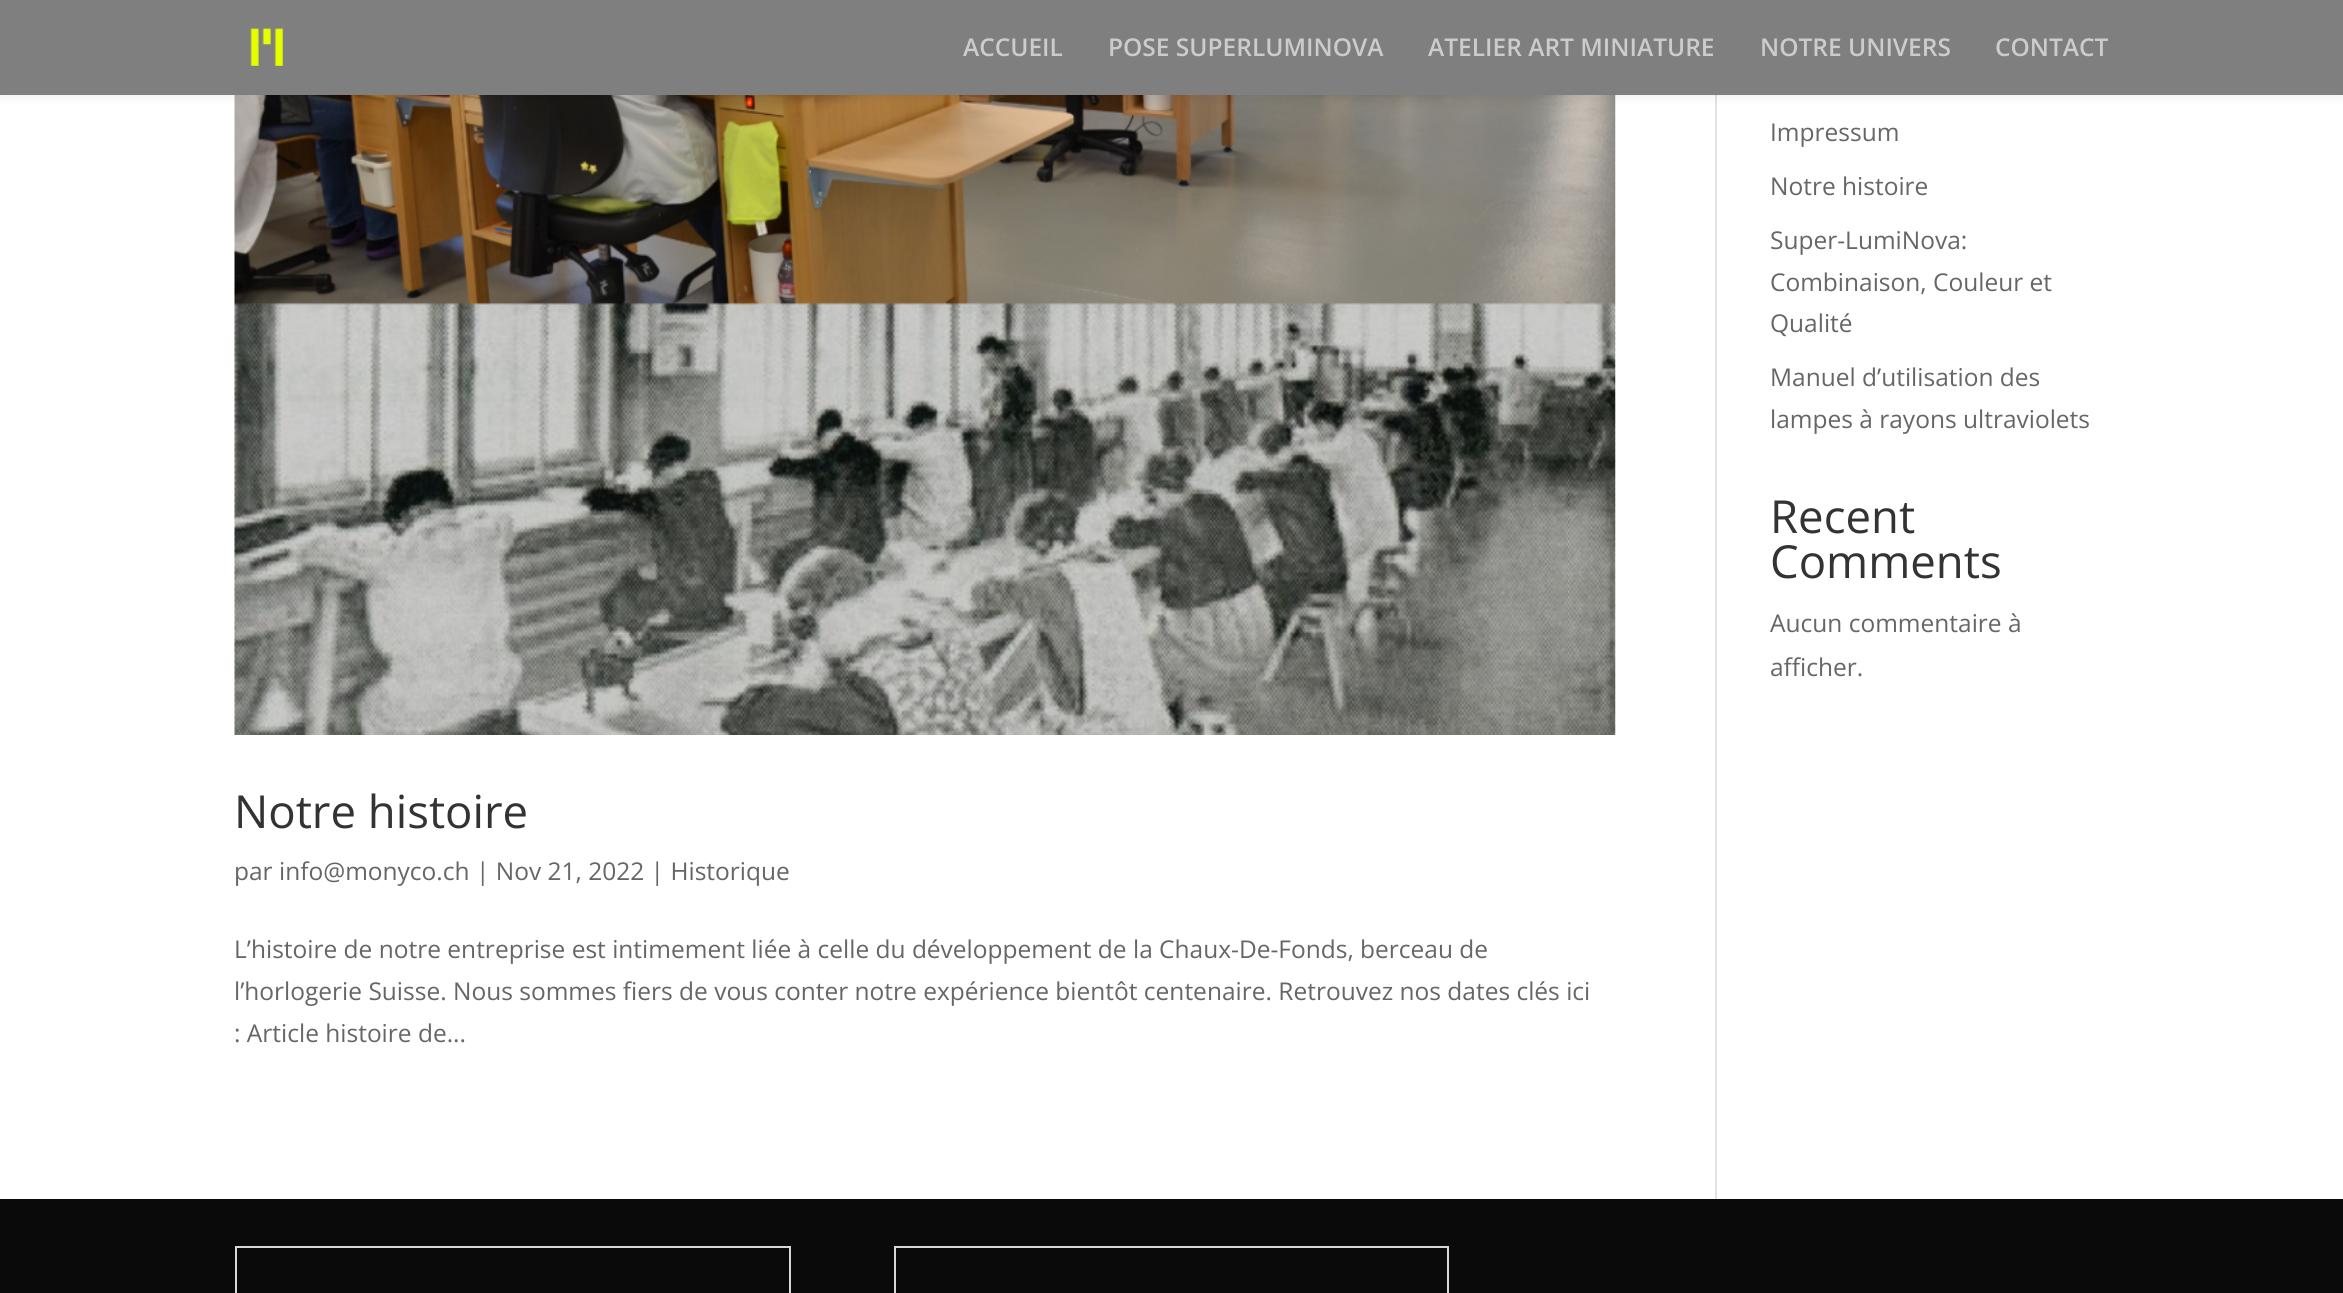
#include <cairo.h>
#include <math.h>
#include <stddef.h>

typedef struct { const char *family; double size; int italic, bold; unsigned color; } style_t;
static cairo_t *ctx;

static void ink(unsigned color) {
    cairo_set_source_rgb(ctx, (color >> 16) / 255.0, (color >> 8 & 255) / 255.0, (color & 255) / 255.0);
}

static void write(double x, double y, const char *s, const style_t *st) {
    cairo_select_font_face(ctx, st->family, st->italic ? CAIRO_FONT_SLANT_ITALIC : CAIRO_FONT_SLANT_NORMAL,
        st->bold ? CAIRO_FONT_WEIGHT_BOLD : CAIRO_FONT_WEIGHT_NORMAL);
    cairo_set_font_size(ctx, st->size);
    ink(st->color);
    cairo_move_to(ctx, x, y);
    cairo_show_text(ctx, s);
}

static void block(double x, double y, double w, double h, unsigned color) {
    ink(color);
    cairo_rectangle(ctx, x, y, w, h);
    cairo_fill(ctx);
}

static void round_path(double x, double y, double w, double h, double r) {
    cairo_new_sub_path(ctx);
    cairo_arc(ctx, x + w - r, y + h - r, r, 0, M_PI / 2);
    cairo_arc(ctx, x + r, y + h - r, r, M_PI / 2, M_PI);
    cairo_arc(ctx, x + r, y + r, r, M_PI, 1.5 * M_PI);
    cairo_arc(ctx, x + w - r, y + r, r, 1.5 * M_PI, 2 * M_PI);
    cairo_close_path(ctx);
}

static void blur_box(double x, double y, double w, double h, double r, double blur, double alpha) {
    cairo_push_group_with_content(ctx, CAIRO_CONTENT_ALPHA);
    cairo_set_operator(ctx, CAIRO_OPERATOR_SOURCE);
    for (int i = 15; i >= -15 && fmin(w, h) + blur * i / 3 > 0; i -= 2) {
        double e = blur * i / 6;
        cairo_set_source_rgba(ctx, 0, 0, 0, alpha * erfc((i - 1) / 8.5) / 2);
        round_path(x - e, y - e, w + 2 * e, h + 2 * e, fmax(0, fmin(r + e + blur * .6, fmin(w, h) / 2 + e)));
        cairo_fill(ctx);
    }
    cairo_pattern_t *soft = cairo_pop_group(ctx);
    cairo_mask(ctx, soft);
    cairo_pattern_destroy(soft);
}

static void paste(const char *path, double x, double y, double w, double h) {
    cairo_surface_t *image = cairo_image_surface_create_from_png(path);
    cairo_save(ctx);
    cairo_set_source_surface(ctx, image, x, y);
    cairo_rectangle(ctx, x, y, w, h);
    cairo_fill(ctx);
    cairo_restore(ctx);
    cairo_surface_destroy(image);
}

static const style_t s1 = {"Open Sans SemiBold", 24.5, 0, 0, 0xcccccc};
static const style_t s2 = {"Open Sans", 24.5, 0, 0, 0x666666};
static const style_t s3 = {"Open Sans", 45.5, 0, 0, 0x333333};

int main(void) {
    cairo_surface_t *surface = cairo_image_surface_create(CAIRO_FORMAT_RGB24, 2343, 1293);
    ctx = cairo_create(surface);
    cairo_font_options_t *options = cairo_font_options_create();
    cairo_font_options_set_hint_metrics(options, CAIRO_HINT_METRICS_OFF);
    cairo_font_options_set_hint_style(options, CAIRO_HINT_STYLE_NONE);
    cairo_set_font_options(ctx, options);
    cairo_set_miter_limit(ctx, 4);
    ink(0xffffff);
    cairo_paint(ctx);
    block(1715, 95, 2, 1104, 0xe2e2e2);
    paste("pic2.png", 234, 95, 1382, 640);
    ink(0x000000);
    blur_box(0, 0, 2343, 95, 0, 6, 0.1);
    block(0, 0, 2343, 95, 0x7f7f7f);
    paste("pic1.png", 250, 28, 34, 38);
    write(963, 56, "ACCUEIL", &s1);
    write(1108, 56, "POSE SUPERLUMINOVA", &s1);
    write(1428, 56, "ATELIER ART MINIATURE", &s1);
    write(1760, 56, "NOTRE UNIVERS", &s1);
    write(1995, 56, "CONTACT", &s1);
    write(1770, 141, "Impressum", &s2);
    write(1770, 195, "Notre histoire", &s2);
    write(1770, 249, "Super-LumiNova:", &s2);
    write(1770, 291, "Combinaison, Couleur et", &s2);
    write(1770, 332, "Qualité", &s2);
    write(1770, 386, "Manuel d’utilisation des", &s2);
    write(1770, 428, "lampes à rayons ultraviolets", &s2);
    write(1770, 533, "Recent", &s3);
    write(1770, 578, "Comments", &s3);
    write(1770, 632, "Aucun commentaire à", &s2);
    write(1770, 676, "afficher.", &s2);
    write(234, 828, "Notre histoire", &s3);
    write(234, 880, "par info@monyco.ch | Nov 21, 2022 | Historique", &s2);
    write(234, 958, "L’histoire de notre entreprise est intimement liée à celle du développement de la Chaux-De-Fonds, berceau de", &s2);
    write(234, 1000, "l’horlogerie Suisse. Nous sommes fiers de vous conter notre expérience bientôt centenaire. Retrouvez nos dates clés ici", &s2);
    write(234, 1042, ": Article histoire de...", &s2);
    block(0, 1199, 2343, 94, 0x0a0a0a);
    cairo_rectangle(ctx, 236, 1247, 554, 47);
    ink(0xd8d8d8);
    cairo_stroke(ctx);
    cairo_rectangle(ctx, 895, 1247, 553, 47);
    cairo_stroke(ctx);
    cairo_surface_write_to_png(surface, "screenshot.png");
    cairo_font_options_destroy(options);
    cairo_destroy(ctx);
    cairo_surface_destroy(surface);
    return 0;
}
